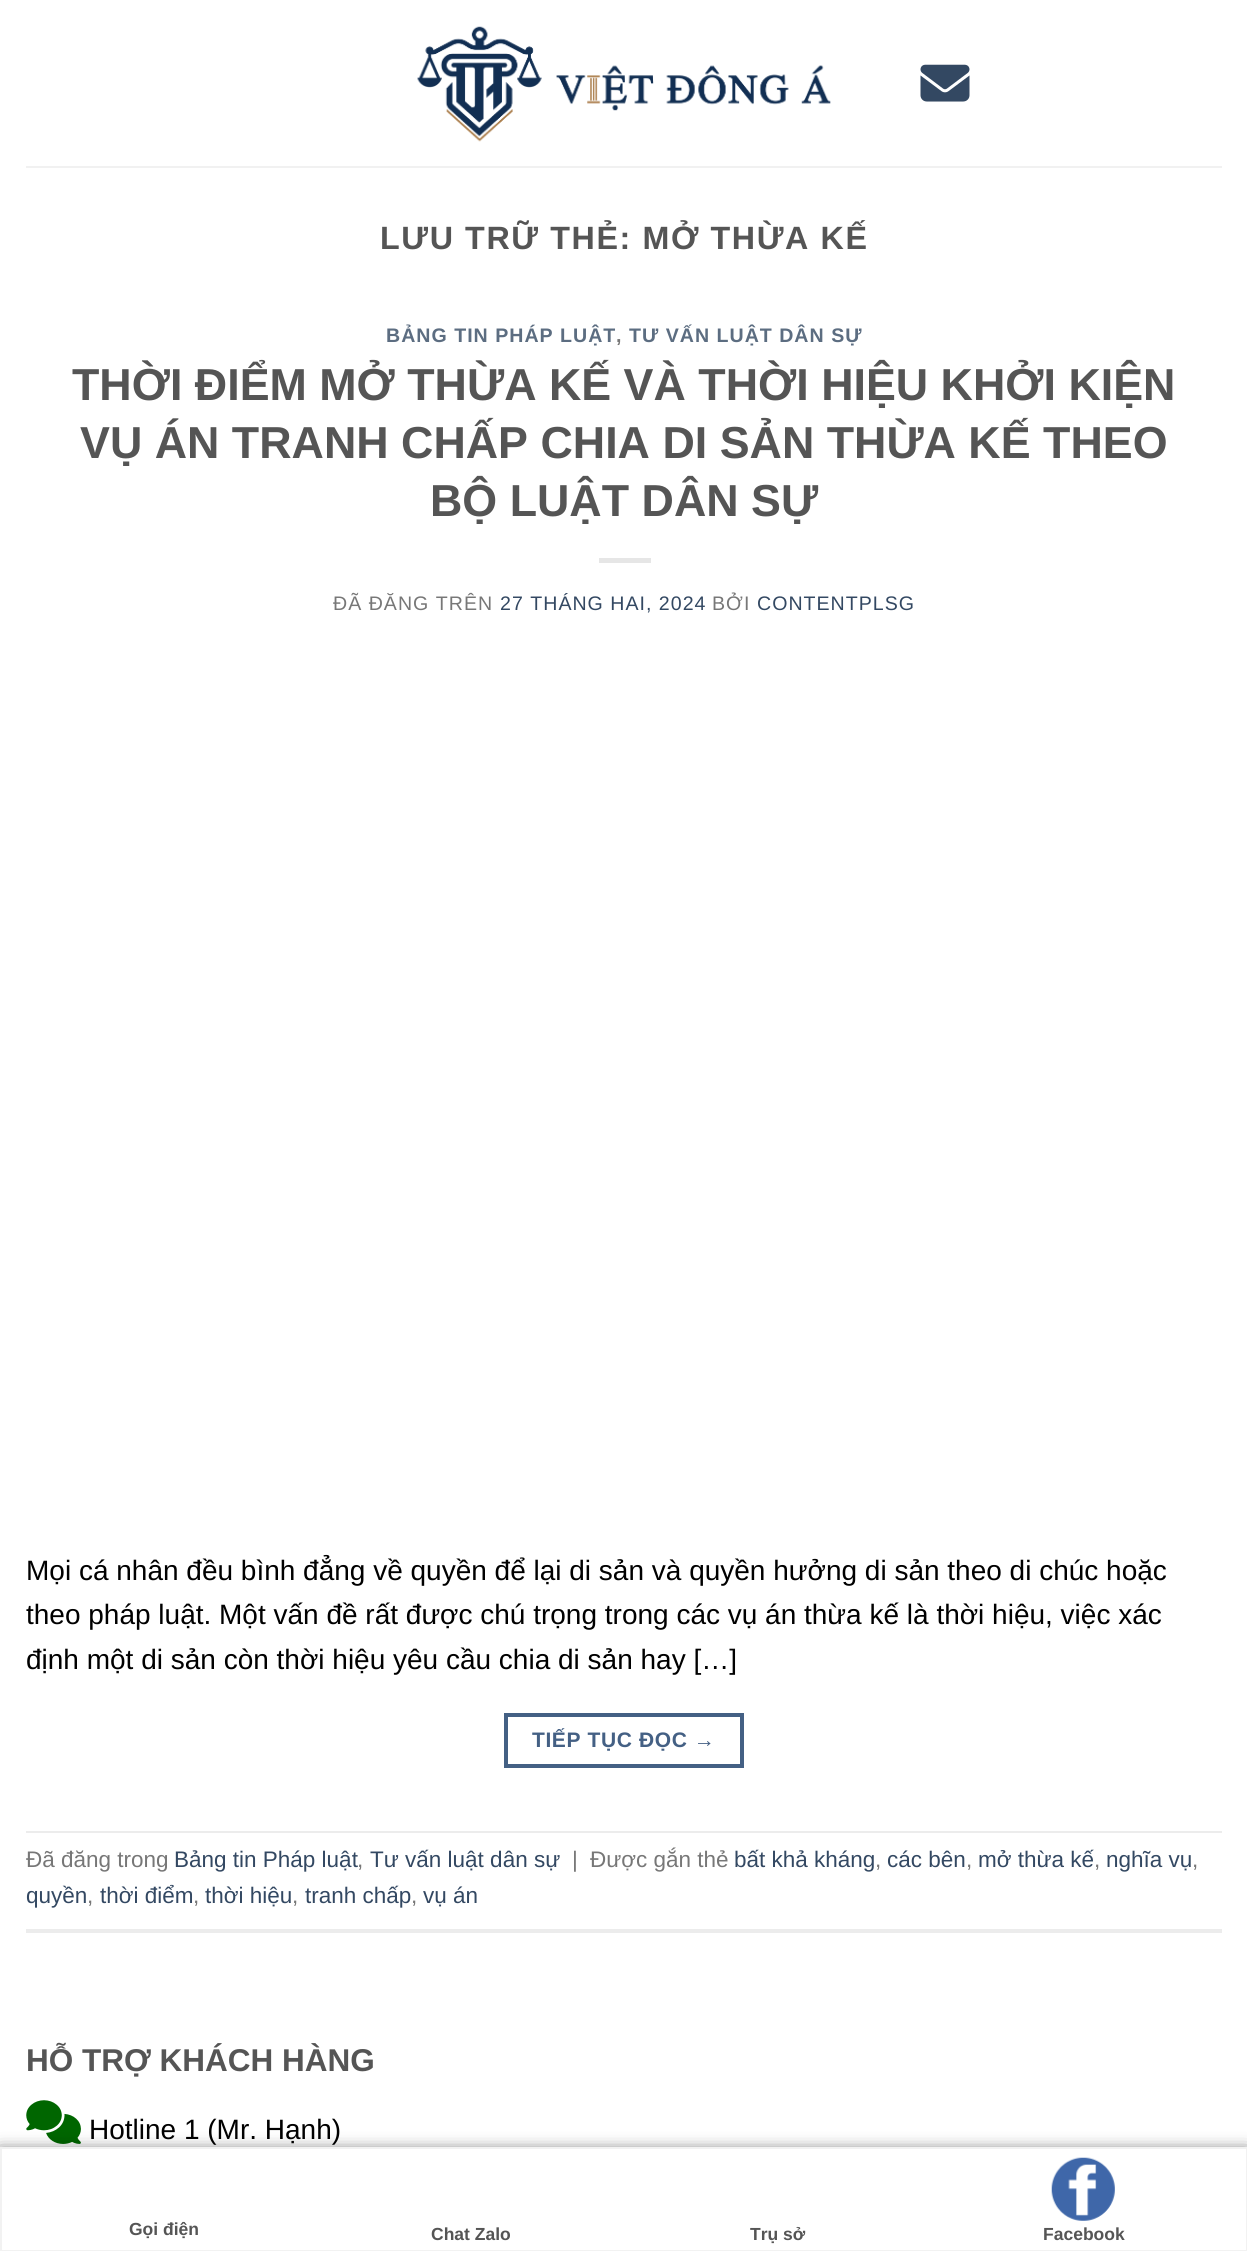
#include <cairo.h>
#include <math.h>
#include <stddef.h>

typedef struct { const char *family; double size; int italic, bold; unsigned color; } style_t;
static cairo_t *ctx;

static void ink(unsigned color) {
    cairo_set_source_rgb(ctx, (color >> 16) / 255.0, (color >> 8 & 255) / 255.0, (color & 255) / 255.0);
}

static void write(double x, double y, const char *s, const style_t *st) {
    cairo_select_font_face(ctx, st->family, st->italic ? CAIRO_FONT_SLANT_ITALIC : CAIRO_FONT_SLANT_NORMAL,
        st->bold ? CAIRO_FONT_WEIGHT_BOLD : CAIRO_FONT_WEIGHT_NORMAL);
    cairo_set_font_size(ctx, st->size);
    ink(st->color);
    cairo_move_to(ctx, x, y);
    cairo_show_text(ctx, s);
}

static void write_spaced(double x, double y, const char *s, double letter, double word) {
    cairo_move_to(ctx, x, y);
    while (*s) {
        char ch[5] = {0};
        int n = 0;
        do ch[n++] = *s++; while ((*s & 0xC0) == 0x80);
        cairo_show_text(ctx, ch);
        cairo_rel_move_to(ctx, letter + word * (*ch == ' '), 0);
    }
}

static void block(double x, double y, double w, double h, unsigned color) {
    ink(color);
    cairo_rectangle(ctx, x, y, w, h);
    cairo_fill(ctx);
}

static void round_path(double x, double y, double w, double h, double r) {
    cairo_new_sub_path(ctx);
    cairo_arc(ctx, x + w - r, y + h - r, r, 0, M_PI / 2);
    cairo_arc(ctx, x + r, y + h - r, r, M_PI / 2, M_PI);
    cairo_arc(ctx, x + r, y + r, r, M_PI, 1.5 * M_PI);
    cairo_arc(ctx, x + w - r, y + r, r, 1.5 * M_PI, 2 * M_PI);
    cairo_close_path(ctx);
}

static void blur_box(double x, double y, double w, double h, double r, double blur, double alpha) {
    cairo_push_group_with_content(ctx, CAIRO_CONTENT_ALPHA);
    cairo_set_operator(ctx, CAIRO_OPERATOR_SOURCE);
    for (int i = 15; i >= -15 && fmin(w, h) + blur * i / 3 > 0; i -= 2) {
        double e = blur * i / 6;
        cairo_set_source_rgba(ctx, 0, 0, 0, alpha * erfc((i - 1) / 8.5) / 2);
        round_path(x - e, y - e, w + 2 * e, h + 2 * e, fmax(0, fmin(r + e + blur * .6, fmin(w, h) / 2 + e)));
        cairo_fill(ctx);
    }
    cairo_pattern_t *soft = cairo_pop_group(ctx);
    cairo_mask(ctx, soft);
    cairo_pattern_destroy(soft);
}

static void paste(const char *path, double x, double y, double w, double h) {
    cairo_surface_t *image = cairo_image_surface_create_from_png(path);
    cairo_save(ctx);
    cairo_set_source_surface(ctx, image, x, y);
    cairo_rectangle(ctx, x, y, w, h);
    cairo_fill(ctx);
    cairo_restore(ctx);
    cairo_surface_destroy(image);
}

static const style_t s1 = {"Liberation Sans", 44.8, 0, 1, 0x555555};
static const style_t s2 = {"Liberation Sans", 28, 0, 0, 0x000000};
static const style_t s3 = {"Liberation Sans", 22.5, 0, 0, 0x777777};
static const style_t s4 = {"Liberation Sans", 22.5, 0, 0, 0x334862};
static const style_t s5 = {"Liberation Sans", 31.5, 0, 1, 0x555555};
static const style_t s6 = {"Liberation Sans", 17.5, 0, 1, 0x555555};

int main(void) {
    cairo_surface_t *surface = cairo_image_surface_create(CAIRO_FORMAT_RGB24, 1247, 2251);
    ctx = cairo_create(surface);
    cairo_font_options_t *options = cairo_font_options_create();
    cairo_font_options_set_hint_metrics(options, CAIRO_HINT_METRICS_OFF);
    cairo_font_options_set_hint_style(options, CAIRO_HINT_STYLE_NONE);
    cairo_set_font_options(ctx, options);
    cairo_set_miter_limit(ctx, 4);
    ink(0xffffff);
    cairo_paint(ctx);
    paste("pic1.png", 417, 26, 414, 116);
    paste("pic2.png", 920, 64, 50, 38);
    block(26, 166, 1196, 2, 0xf1f1f1);
    cairo_select_font_face(ctx, "Liberation Sans", CAIRO_FONT_SLANT_NORMAL, CAIRO_FONT_WEIGHT_BOLD);
    cairo_set_font_size(ctx, 32.25);
    ink(0x555555);
    write_spaced(380, 249, "LƯU TRỮ THẺ: MỞ THỪA KẾ", 1.6, 0);
    cairo_set_font_size(ctx, 19.6);
    ink(0x5c6d81);
    write_spaced(386, 342, "BẢNG TIN PHÁP LUẬT", 1, 0);
    ink(0x777777);
    write_spaced(616, 342, ",", 1, 0);
    ink(0x5c6d81);
    write_spaced(629, 342, "TƯ VẤN LUẬT DÂN SỰ", 1, 0);
    write(72, 400, "THỜI ĐIỂM MỞ THỪA KẾ VÀ THỜI HIỆU KHỞI KIỆN", &s1);
    write(80, 458, "VỤ ÁN TRANH CHẤP CHIA DI SẢN THỪA KẾ THEO", &s1);
    write(430, 516, "BỘ LUẬT DÂN SỰ", &s1);
    block(599, 558, 52, 5, 0xe6e6e6);
    cairo_select_font_face(ctx, "Liberation Sans", CAIRO_FONT_SLANT_NORMAL, CAIRO_FONT_WEIGHT_NORMAL);
    cairo_set_font_size(ctx, 19.6);
    ink(0x777777);
    write_spaced(333, 610, "ĐÃ ĐĂNG TRÊN", 1, 0);
    ink(0x334862);
    write_spaced(500, 610, "27 THÁNG HAI, 2024", 1, 0);
    ink(0x777777);
    write_spaced(712, 610, "BỞI", 1, 0);
    ink(0x334862);
    write_spaced(757, 610, "CONTENTPLSG", 1, 0);
    write(26, 1580, "Mọi cá nhân đều bình đẳng về quyền để lại di sản và quyền hưởng di sản theo di chúc hoặc", &s2);
    write(26, 1624, "theo pháp luật. Một vấn đề rất được chú trọng trong các vụ án thừa kế là thời hiệu, việc xác", &s2);
    write(26, 1669, "định một di sản còn thời hiệu yêu cầu chia di sản hay […]", &s2);
    cairo_rectangle(ctx, 506, 1715, 236, 51);
    ink(0x446084);
    cairo_set_line_width(ctx, 4);
    cairo_stroke(ctx);
    cairo_select_font_face(ctx, "Liberation Sans", CAIRO_FONT_SLANT_NORMAL, CAIRO_FONT_WEIGHT_BOLD);
    cairo_set_font_size(ctx, 21);
    write_spaced(532, 1747, "TIẾP TỤC ĐỌC →", 0.6, 0);
    block(26, 1831, 1196, 2, 0xececec);
    block(26, 1929, 1196, 4, 0xececec);
    write(26, 1867, "Đã đăng trong", &s3);
    write(174, 1867, "Bảng tin Pháp luật", &s4);
    write(357, 1867, ",", &s3);
    write(370, 1867, "Tư vấn luật dân sự", &s4);
    write(572, 1867, "|", &s3);
    write(590, 1867, "Được gắn thẻ", &s3);
    write(734, 1867, "bất khả kháng", &s4);
    write(875, 1867, ",", &s3);
    write(887, 1867, "các bên", &s4);
    write(966, 1867, ",", &s3);
    write(978, 1867, "mở thừa kế", &s4);
    write(1094, 1867, ",", &s3);
    write(1106, 1867, "nghĩa vụ", &s4);
    write(1192, 1867, ",", &s3);
    write(26, 1903, "quyền", &s4);
    write(87, 1903, ",", &s3);
    write(100, 1903, "thời điểm", &s4);
    write(193, 1903, ",", &s3);
    write(205, 1903, "thời hiệu", &s4);
    write(292, 1903, ",", &s3);
    write(305, 1903, "tranh chấp", &s4);
    write(411, 1903, ",", &s3);
    write(423, 1903, "vụ án", &s4);
    write(26, 2071, "HỖ TRỢ KHÁCH HÀNG", &s5);
    paste("pic3.png", 26, 2100, 55, 44);
    write(89, 2139, "Hotline 1 (Mr. Hạnh)", &s2);
    ink(0x000000);
    blur_box(0, 2154, 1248, 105, 0, 9, 1);
    ink(0xffffff);
    cairo_rectangle(ctx, 1, 2148, 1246, 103);
    cairo_fill_preserve(ctx);
    ink(0xf2f2f2);
    cairo_set_line_width(ctx, 2);
    cairo_stroke(ctx);
    write(129, 2235, "Gọi điện", &s6);
    write(431, 2240, "Chat Zalo", &s6);
    write(750, 2240, "Trụ sở", &s6);
    paste("pic4.png", 1051, 2157, 64, 64);
    write(1043, 2240, "Facebook", &s6);
    cairo_surface_write_to_png(surface, "screenshot.png");
    cairo_font_options_destroy(options);
    cairo_destroy(ctx);
    cairo_surface_destroy(surface);
    return 0;
}
